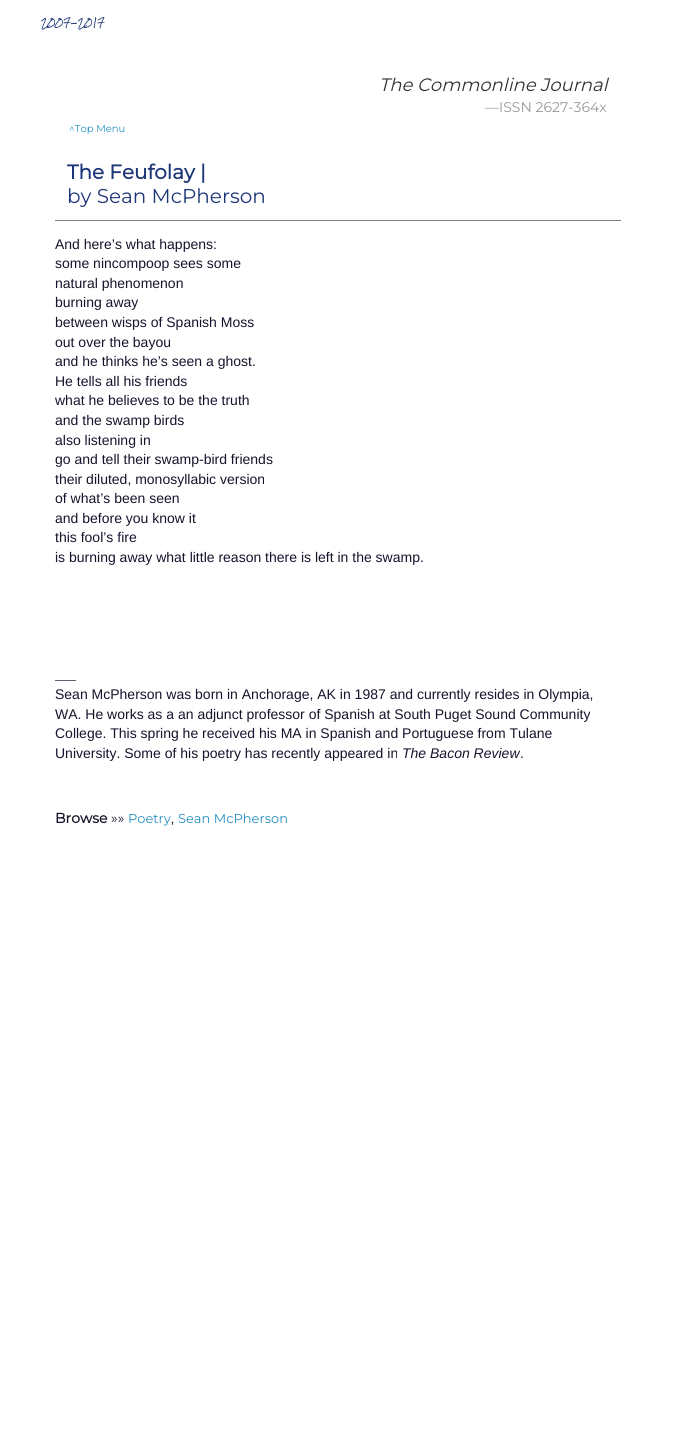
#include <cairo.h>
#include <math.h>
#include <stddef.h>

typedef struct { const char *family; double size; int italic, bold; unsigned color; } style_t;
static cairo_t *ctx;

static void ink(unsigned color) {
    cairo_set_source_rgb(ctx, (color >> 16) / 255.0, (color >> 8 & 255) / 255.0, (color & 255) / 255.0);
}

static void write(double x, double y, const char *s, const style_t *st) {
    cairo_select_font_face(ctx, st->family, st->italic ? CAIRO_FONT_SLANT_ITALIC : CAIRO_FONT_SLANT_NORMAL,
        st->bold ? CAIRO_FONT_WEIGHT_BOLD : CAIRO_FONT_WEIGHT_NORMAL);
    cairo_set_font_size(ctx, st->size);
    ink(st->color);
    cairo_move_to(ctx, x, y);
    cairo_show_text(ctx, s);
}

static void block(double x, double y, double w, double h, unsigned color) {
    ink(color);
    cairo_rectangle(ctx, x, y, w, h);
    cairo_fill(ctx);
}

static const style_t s1 = {"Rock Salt", 9, 0, 0, 0x1d3677};
static const style_t s2 = {"Montserrat Thin", 18, 1, 0, 0x333333};
static const style_t s3 = {"Montserrat Thin", 14, 0, 0, 0x999999};
static const style_t s4 = {"Montserrat Thin", 10, 0, 0, 0x258fc3};
static const style_t s5 = {"Montserrat", 20, 0, 1, 0x1d3677};
static const style_t s6 = {"Montserrat Thin", 20, 0, 0, 0x1d3677};
static const style_t s7 = {"Liberation Sans", 14, 0, 0, 0x14142c};
static const style_t s8 = {"Montserrat Thin", 14, 0, 0, 0x14142c};
static const style_t s9 = {"Liberation Sans", 14, 1, 0, 0x14142c};
static const style_t s10 = {"Montserrat", 14, 0, 1, 0x14142c};
static const style_t s11 = {"Montserrat Thin", 13, 0, 0, 0x258fc3};

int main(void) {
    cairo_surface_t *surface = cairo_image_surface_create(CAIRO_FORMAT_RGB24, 676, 1451);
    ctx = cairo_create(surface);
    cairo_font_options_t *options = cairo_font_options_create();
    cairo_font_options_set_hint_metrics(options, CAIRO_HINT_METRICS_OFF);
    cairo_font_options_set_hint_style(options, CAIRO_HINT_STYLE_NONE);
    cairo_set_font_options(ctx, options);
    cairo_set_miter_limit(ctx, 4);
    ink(0xffffff);
    cairo_paint(ctx);
    write(41, 26, "2007-2017", &s1);
    write(379, 91, "The Commonline Journal", &s2);
    write(485, 112, "—ISSN 2627-364x", &s3);
    write(69, 132, "^Top Menu", &s4);
    block(55, 220, 566, 1, 0x808080);
    write(67, 179, "The Feufolay |", &s5);
    write(67, 203, "by Sean McPherson", &s6);
    write(55, 249, "And here’s what happens:", &s7);
    write(55, 268, "some nincompoop sees some", &s7);
    write(55, 288, "natural phenomenon", &s7);
    write(55, 307, "burning away", &s7);
    write(55, 327, "between wisps of Spanish Moss", &s7);
    write(55, 347, "out over the bayou", &s7);
    write(55, 366, "and he thinks he’s seen a ghost.", &s7);
    write(55, 386, "He tells all his friends", &s7);
    write(55, 405, "what he believes to be the truth", &s7);
    write(55, 425, "and the swamp birds", &s7);
    write(55, 445, "also listening in", &s7);
    write(55, 464, "go and tell their swamp-bird friends", &s7);
    write(55, 484, "their diluted, monosyllabic version", &s7);
    write(55, 503, "of what’s been seen", &s7);
    write(55, 523, "and before you know it", &s7);
    write(55, 542, "this fool’s fire", &s7);
    write(55, 562, "is burning away what little reason there is left in the swamp.", &s7);
    write(55, 680, "___", &s8);
    write(55, 699, "Sean McPherson was born in Anchorage, AK in 1987 and currently resides in Olympia,", &s7);
    write(55, 719, "WA. He works as a an adjunct professor of Spanish at South Puget Sound Community", &s7);
    write(55, 738, "College. This spring he received his MA in Spanish and Portuguese from Tulane", &s7);
    write(55, 758, "University. Some of his poetry has recently appeared in", &s7);
    write(402, 758, "The Bacon Review", &s9);
    write(520, 758, ".", &s7);
    write(55, 823, "Browse", &s10);
    write(111, 823, "»»", &s8);
    write(128, 823, "Poetry", &s11);
    write(178, 823, "Sean McPherson", &s11);
    write(171, 823, ",", &s8);
    cairo_surface_write_to_png(surface, "screenshot.png");
    cairo_font_options_destroy(options);
    cairo_destroy(ctx);
    cairo_surface_destroy(surface);
    return 0;
}
